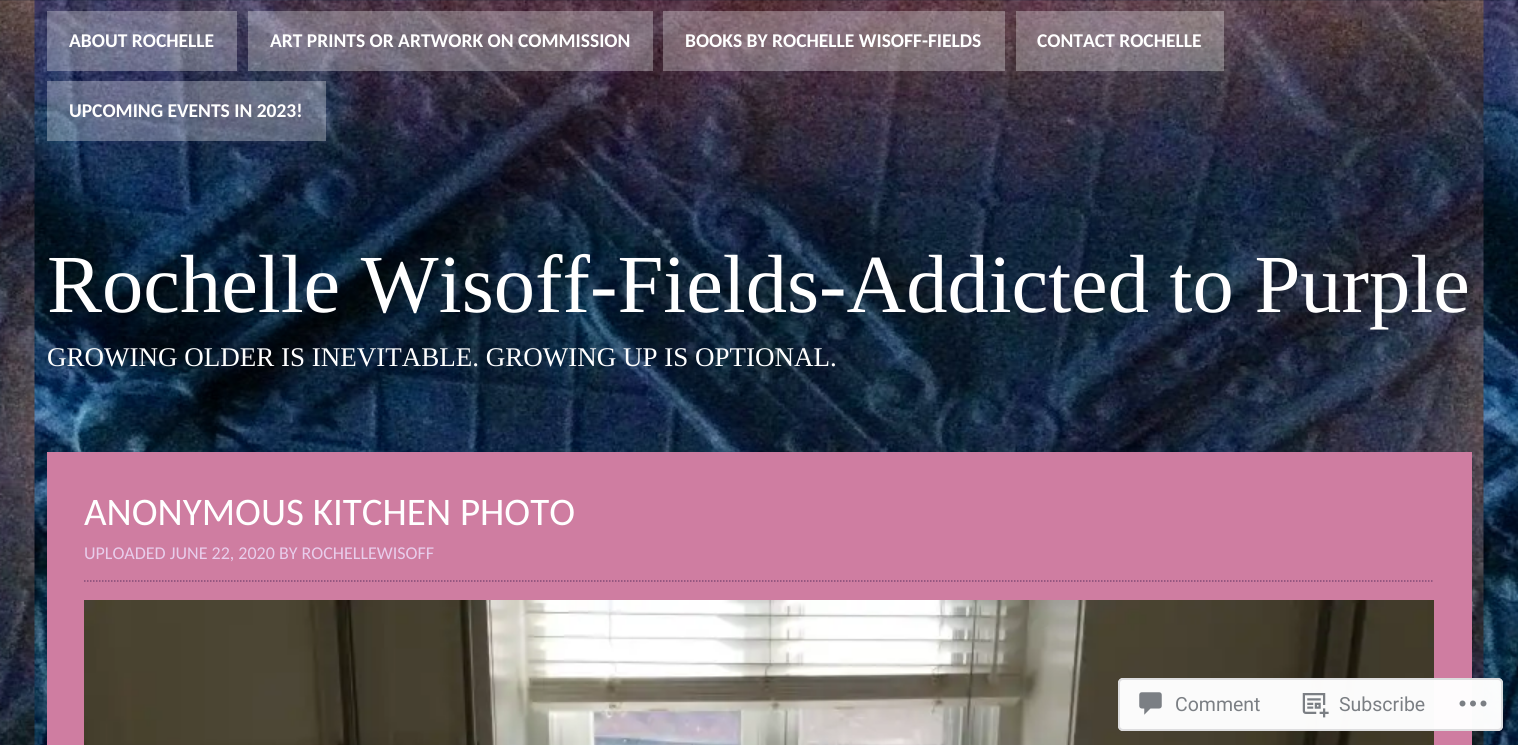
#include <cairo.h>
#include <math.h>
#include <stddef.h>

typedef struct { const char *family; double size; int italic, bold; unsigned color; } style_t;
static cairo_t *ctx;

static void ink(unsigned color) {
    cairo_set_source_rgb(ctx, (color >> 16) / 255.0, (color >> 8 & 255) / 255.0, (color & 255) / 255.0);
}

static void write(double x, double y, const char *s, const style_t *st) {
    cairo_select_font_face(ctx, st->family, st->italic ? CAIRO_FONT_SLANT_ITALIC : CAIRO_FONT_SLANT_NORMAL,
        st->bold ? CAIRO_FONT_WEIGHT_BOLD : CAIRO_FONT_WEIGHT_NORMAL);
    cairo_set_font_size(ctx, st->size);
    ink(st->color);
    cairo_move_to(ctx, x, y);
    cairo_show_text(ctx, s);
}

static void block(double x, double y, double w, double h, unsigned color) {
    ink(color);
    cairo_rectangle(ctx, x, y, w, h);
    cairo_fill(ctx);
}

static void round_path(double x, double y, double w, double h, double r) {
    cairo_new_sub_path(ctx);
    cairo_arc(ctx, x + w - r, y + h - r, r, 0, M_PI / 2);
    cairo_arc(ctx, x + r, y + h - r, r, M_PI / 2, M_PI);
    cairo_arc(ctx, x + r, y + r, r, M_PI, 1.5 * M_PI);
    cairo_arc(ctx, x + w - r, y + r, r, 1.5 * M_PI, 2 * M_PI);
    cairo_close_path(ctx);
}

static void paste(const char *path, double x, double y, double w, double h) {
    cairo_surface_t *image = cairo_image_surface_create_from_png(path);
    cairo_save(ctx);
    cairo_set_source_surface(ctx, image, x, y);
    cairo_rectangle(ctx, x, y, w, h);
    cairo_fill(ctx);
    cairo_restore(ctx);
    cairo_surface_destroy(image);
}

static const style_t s1 = {"Carlito", 19.5, 0, 1, 0xffffff};
static const style_t s2 = {"Liberation Serif", 82.5, 0, 0, 0xffffff};
static const style_t s3 = {"Liberation Serif", 27, 0, 0, 0xffffff};
static const style_t s4 = {"Carlito", 39, 0, 0, 0xffffff};
static const style_t s5 = {"Carlito", 18, 0, 0, 0xe8cdeb};
static const style_t s6 = {"Roboto", 19.5, 0, 0, 0x7b7f84};

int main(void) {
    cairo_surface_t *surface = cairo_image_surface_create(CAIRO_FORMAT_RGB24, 1518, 745);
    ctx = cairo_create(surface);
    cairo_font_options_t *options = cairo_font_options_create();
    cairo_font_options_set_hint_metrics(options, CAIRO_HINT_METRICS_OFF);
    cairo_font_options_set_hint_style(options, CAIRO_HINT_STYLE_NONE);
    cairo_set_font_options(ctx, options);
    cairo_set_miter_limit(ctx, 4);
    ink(0xffffff);
    cairo_paint(ctx);
    paste("pic1.png", 0, 0, 1518, 745);
    cairo_set_source_rgba(ctx, 1, 1, 1, 0.3);
    cairo_rectangle(ctx, 47, 11, 190, 60);
    cairo_fill(ctx);
    write(69, 47, "ABOUT ROCHELLE", &s1);
    cairo_set_source_rgba(ctx, 1, 1, 1, 0.3);
    cairo_rectangle(ctx, 248, 11, 405, 60);
    cairo_fill(ctx);
    write(270, 47, "ART PRINTS OR ARTWORK ON COMMISSION", &s1);
    cairo_set_source_rgba(ctx, 1, 1, 1, 0.3);
    cairo_rectangle(ctx, 663, 11, 342, 60);
    cairo_fill(ctx);
    write(685, 47, "BOOKS BY ROCHELLE WISOFF-FIELDS", &s1);
    cairo_set_source_rgba(ctx, 1, 1, 1, 0.3);
    cairo_rectangle(ctx, 1016, 11, 208, 60);
    cairo_fill(ctx);
    write(1037, 47, "CONTACT ROCHELLE", &s1);
    cairo_set_source_rgba(ctx, 1, 1, 1, 0.3);
    cairo_rectangle(ctx, 47, 81, 279, 60);
    cairo_fill(ctx);
    write(69, 117, "UPCOMING EVENTS IN 2023!", &s1);
    write(47, 312, "Rochelle Wisoff-Fields-Addicted to Purple", &s2);
    write(47, 366, "GROWING OLDER IS INEVITABLE. GROWING UP IS OPTIONAL.", &s3);
    block(47, 452, 1425, 293, 0xcf7da1);
    cairo_new_path(ctx);
    cairo_move_to(ctx, 84, 581);
    cairo_line_to(ctx, 1434, 581);
    ink(0x844a76);
    cairo_set_line_width(ctx, 1.5);
    cairo_set_dash(ctx, (double[]){1.5, 1.5}, 2, 0);
    cairo_stroke(ctx);
    write(84, 525, "ANONYMOUS KITCHEN PHOTO", &s4);
    write(84, 559, "UPLOADED JUNE 22, 2020 BY ROCHELLEWISOFF", &s5);
    paste("pic2.png", 84, 600, 1350, 145);
    cairo_set_source_rgba(ctx, 1, 1, 1, 0.98);
    round_path(1118, 678, 385, 53, 5);
    cairo_fill(ctx);
    round_path(1119, 679, 383, 51, 4);
    cairo_set_source_rgba(ctx, 0.863, 0.863, 0.871, 0.98);
    cairo_set_line_width(ctx, 2);
    cairo_set_dash(ctx, NULL, 0, 0);
    cairo_stroke(ctx);
    paste("pic3.png", 1139, 692, 23, 23);
    write(1175, 711, "Comment", &s6);
    paste("pic4.png", 1302, 693, 27, 25);
    write(1339, 711, "Subscribe", &s6);
    paste("pic5.png", 1459, 700, 28, 7);
    cairo_surface_write_to_png(surface, "screenshot.png");
    cairo_font_options_destroy(options);
    cairo_destroy(ctx);
    cairo_surface_destroy(surface);
    return 0;
}
